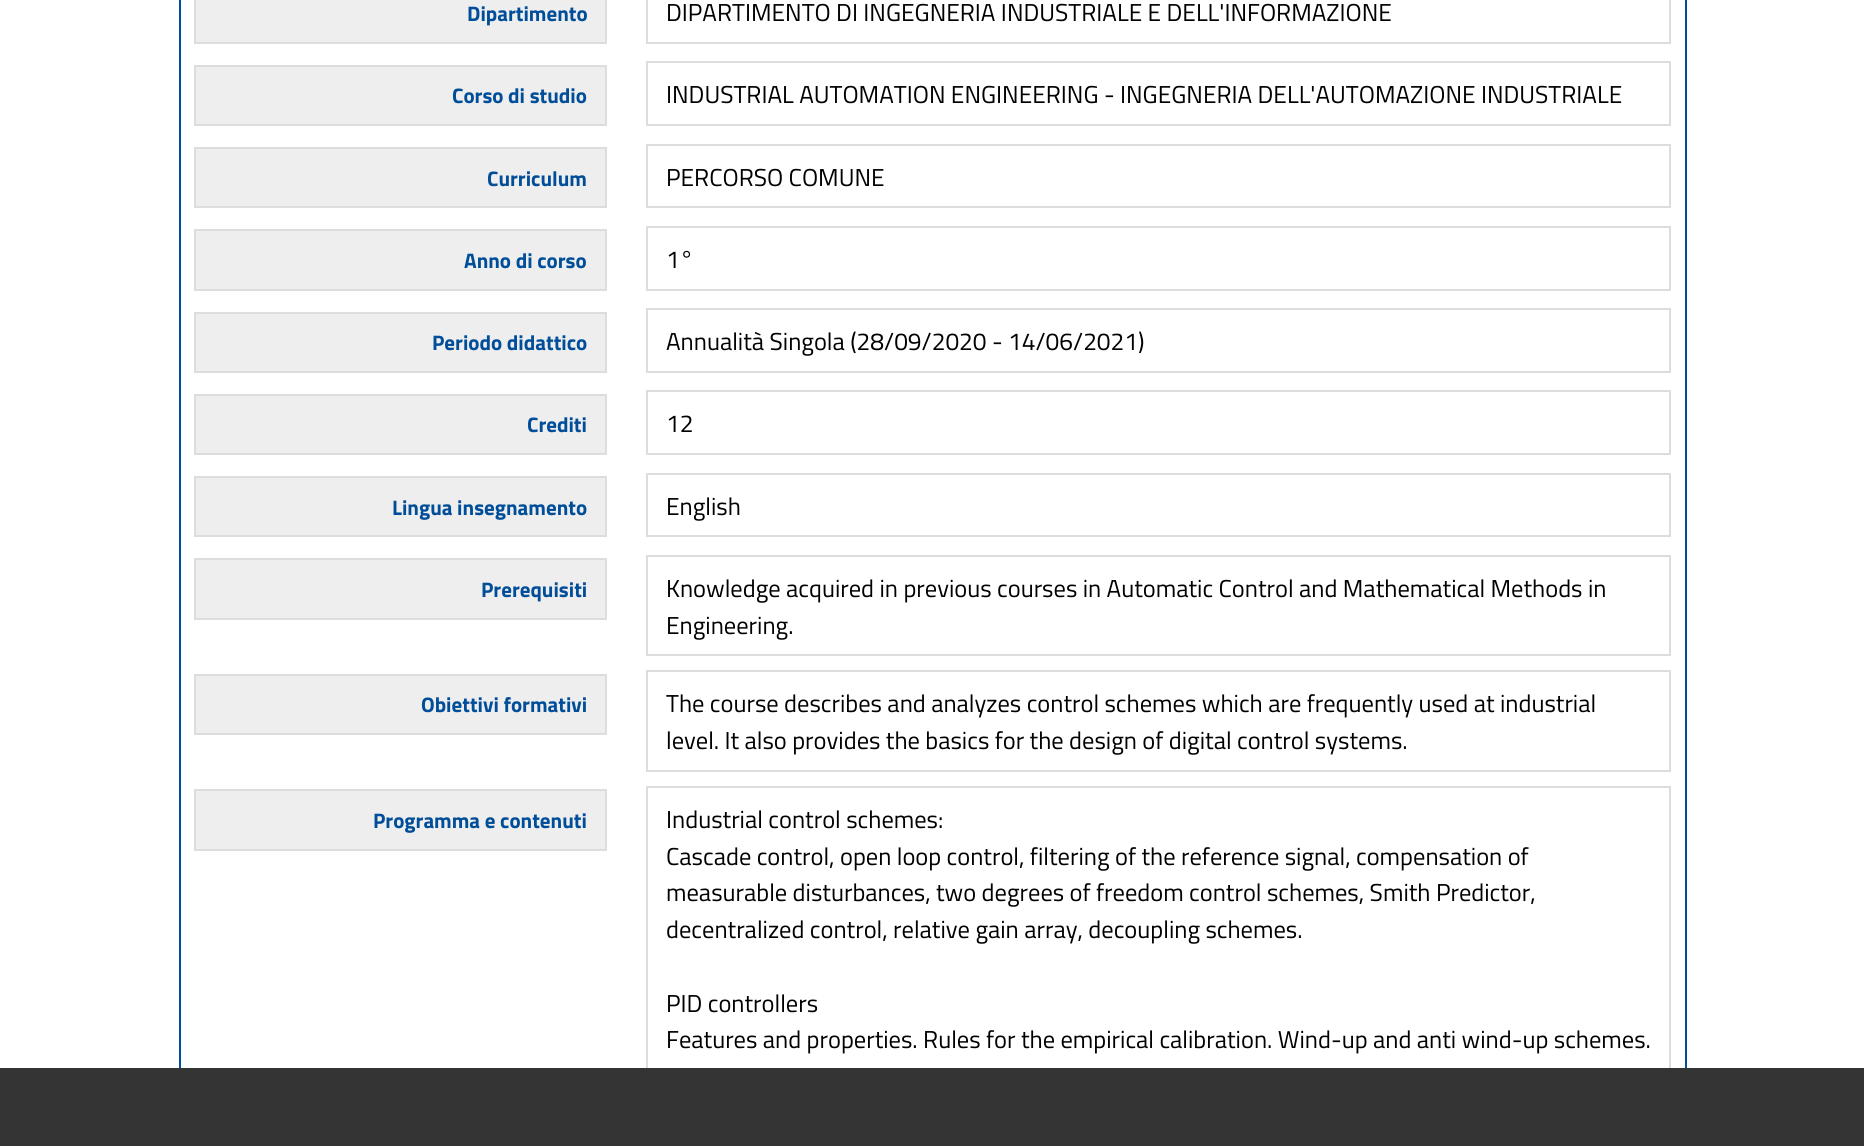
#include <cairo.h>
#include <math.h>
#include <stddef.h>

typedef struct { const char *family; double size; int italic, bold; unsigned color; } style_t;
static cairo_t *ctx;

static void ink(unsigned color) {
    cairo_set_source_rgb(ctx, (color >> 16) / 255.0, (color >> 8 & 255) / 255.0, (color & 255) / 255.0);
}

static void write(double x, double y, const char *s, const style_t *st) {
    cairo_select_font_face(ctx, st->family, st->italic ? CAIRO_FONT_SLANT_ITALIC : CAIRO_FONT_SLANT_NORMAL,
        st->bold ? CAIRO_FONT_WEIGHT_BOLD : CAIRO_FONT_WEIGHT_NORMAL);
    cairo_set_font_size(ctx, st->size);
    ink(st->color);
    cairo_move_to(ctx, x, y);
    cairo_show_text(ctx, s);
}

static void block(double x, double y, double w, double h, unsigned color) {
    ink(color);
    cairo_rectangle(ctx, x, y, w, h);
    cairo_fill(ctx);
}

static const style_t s1 = {"Titillium Web", 21, 0, 1, 0x004d99};
static const style_t s2 = {"Titillium Web", 24.5, 0, 0, 0x000000};

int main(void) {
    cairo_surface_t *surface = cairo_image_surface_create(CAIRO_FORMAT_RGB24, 1864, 1146);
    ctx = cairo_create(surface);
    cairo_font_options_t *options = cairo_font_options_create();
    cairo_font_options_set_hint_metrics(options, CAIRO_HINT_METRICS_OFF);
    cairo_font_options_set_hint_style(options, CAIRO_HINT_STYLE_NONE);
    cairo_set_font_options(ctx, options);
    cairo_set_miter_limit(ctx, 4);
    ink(0xffffff);
    cairo_paint(ctx);
    cairo_rectangle(ctx, 180, -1, 1506, 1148);
    ink(0x004d99);
    cairo_stroke(ctx);
    ink(0xeeeeee);
    cairo_rectangle(ctx, 195, -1, 411, 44);
    cairo_fill_preserve(ctx);
    ink(0xdddddd);
    cairo_stroke(ctx);
    write(467, 21, "Dipartimento", &s1);
    cairo_rectangle(ctx, 647, -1, 1023, 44);
    ink(0xdddddd);
    cairo_stroke(ctx);
    write(666, 21, "DIPARTIMENTO DI INGEGNERIA INDUSTRIALE E DELL'INFORMAZIONE", &s2);
    ink(0xeeeeee);
    cairo_rectangle(ctx, 195, 66, 411, 59);
    cairo_fill_preserve(ctx);
    ink(0xdddddd);
    cairo_stroke(ctx);
    write(452, 103, "Corso di studio", &s1);
    cairo_rectangle(ctx, 647, 62, 1023, 63);
    ink(0xdddddd);
    cairo_stroke(ctx);
    write(666, 103, "INDUSTRIAL AUTOMATION ENGINEERING - INGEGNERIA DELL'AUTOMAZIONE INDUSTRIALE", &s2);
    ink(0xeeeeee);
    cairo_rectangle(ctx, 195, 148, 411, 59);
    cairo_fill_preserve(ctx);
    ink(0xdddddd);
    cairo_stroke(ctx);
    write(487, 186, "Curriculum", &s1);
    cairo_rectangle(ctx, 647, 145, 1023, 62);
    ink(0xdddddd);
    cairo_stroke(ctx);
    write(666, 186, "PERCORSO COMUNE", &s2);
    ink(0xeeeeee);
    cairo_rectangle(ctx, 195, 230, 411, 60);
    cairo_fill_preserve(ctx);
    ink(0xdddddd);
    cairo_stroke(ctx);
    write(464, 268, "Anno di corso", &s1);
    cairo_rectangle(ctx, 647, 227, 1023, 63);
    ink(0xdddddd);
    cairo_stroke(ctx);
    write(666, 268, "1°", &s2);
    ink(0xeeeeee);
    cairo_rectangle(ctx, 195, 313, 411, 59);
    cairo_fill_preserve(ctx);
    ink(0xdddddd);
    cairo_stroke(ctx);
    write(432, 350, "Periodo didattico", &s1);
    cairo_rectangle(ctx, 647, 309, 1023, 63);
    ink(0xdddddd);
    cairo_stroke(ctx);
    write(666, 350, "Annualità Singola (28/09/2020 - 14/06/2021)", &s2);
    ink(0xeeeeee);
    cairo_rectangle(ctx, 195, 395, 411, 59);
    cairo_fill_preserve(ctx);
    ink(0xdddddd);
    cairo_stroke(ctx);
    write(527, 432, "Crediti", &s1);
    cairo_rectangle(ctx, 647, 391, 1023, 63);
    ink(0xdddddd);
    cairo_stroke(ctx);
    write(666, 432, "12", &s2);
    ink(0xeeeeee);
    cairo_rectangle(ctx, 195, 477, 411, 59);
    cairo_fill_preserve(ctx);
    ink(0xdddddd);
    cairo_stroke(ctx);
    write(392, 515, "Lingua insegnamento", &s1);
    cairo_rectangle(ctx, 647, 474, 1023, 62);
    ink(0xdddddd);
    cairo_stroke(ctx);
    write(666, 515, "English", &s2);
    ink(0xeeeeee);
    cairo_rectangle(ctx, 195, 559, 411, 60);
    cairo_fill_preserve(ctx);
    ink(0xdddddd);
    cairo_stroke(ctx);
    write(481, 597, "Prerequisiti", &s1);
    cairo_rectangle(ctx, 647, 556, 1023, 99);
    ink(0xdddddd);
    cairo_stroke(ctx);
    write(666, 597, "Knowledge acquired in previous courses in Automatic Control and Mathematical Methods in", &s2);
    write(666, 634, "Engineering.", &s2);
    ink(0xeeeeee);
    cairo_rectangle(ctx, 195, 675, 411, 59);
    cairo_fill_preserve(ctx);
    ink(0xdddddd);
    cairo_stroke(ctx);
    write(421, 712, "Obiettivi formativi", &s1);
    cairo_rectangle(ctx, 647, 671, 1023, 100);
    ink(0xdddddd);
    cairo_stroke(ctx);
    write(666, 712, "The course describes and analyzes control schemes which are frequently used at industrial", &s2);
    write(666, 749, "level. It also provides the basics for the design of digital control systems.", &s2);
    ink(0xeeeeee);
    cairo_rectangle(ctx, 195, 790, 411, 60);
    cairo_fill_preserve(ctx);
    ink(0xdddddd);
    cairo_stroke(ctx);
    write(373, 828, "Programma e contenuti", &s1);
    cairo_rectangle(ctx, 647, 787, 1023, 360);
    ink(0xdddddd);
    cairo_stroke(ctx);
    write(666, 828, "Industrial control schemes:", &s2);
    write(666, 865, "Cascade control, open loop control, filtering of the reference signal, compensation of", &s2);
    write(666, 901, "measurable disturbances, two degrees of freedom control schemes, Smith Predictor,", &s2);
    write(666, 938, "decentralized control, relative gain array, decoupling schemes.", &s2);
    write(666, 1012, "PID controllers", &s2);
    write(666, 1048, "Features and properties. Rules for the empirical calibration. Wind-up and anti wind-up schemes.", &s2);
    block(0, 1068, 1864, 78, 0x343434);
    cairo_surface_write_to_png(surface, "screenshot.png");
    cairo_font_options_destroy(options);
    cairo_destroy(ctx);
    cairo_surface_destroy(surface);
    return 0;
}
